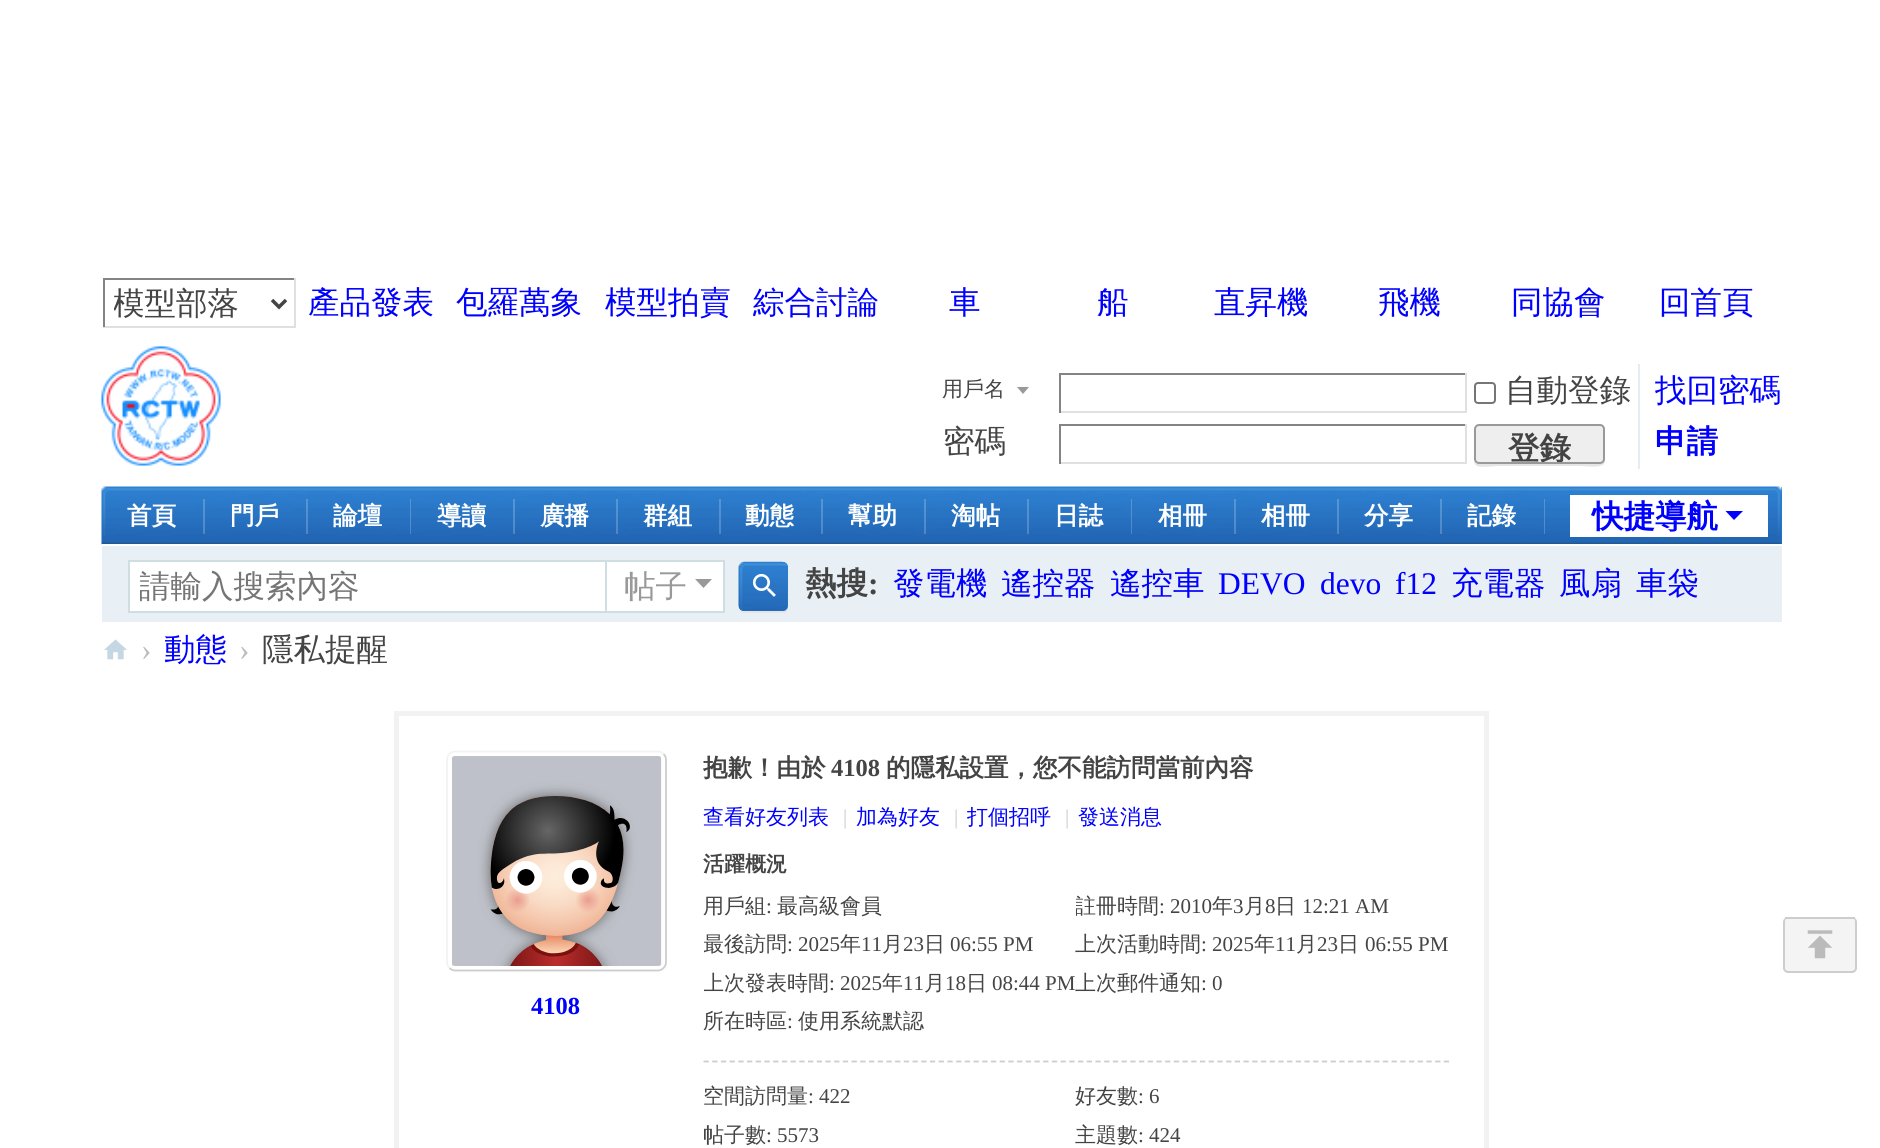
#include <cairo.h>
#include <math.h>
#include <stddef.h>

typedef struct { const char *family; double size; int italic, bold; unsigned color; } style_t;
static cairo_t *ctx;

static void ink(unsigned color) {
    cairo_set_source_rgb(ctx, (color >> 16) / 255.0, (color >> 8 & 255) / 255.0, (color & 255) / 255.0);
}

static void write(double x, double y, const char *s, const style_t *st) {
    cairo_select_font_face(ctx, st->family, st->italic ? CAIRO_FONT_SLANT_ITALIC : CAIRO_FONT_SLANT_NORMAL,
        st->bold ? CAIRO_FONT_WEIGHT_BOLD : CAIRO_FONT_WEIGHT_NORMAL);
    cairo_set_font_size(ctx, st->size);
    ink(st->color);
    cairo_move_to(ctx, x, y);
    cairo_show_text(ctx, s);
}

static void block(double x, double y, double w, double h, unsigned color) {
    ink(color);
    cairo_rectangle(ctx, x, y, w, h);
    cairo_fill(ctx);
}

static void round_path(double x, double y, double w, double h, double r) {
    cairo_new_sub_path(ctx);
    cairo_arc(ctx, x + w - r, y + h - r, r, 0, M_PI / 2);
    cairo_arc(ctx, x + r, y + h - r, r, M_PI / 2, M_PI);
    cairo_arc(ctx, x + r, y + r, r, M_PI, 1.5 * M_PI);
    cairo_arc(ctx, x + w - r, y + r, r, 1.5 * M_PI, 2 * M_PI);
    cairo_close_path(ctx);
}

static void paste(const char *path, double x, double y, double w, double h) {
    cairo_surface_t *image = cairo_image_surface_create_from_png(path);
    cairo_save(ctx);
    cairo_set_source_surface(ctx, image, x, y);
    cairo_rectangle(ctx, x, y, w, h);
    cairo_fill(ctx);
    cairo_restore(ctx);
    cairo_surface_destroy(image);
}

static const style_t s1 = {"WenQuanYi Zen Hei Medium", 31.5, 0, 0, 0x444444};
static const style_t s2 = {"WenQuanYi Zen Hei Medium", 31.5, 0, 0, 0x0000ff};
static const style_t s3 = {"WenQuanYi Zen Hei Medium", 21, 0, 0, 0x444444};
static const style_t s4 = {"WenQuanYi Zen Hei", 31.5, 0, 1, 0x444444};
static const style_t s5 = {"WenQuanYi Zen Hei", 31.5, 0, 1, 0x0000ff};
static const style_t s6 = {"WenQuanYi Zen Hei", 24.5, 0, 1, 0xffffff};
static const style_t s7 = {"WenQuanYi Zen Hei Medium", 31.5, 0, 0, 0x757575};
static const style_t s8 = {"WenQuanYi Zen Hei Medium", 31.5, 0, 0, 0x999999};
static const style_t s9 = {"Liberation Serif", 31.5, 0, 1, 0x444444};
static const style_t s10 = {"Liberation Serif", 31.5, 0, 0, 0x0000ff};
static const style_t s11 = {"Liberation Serif", 31.5, 0, 0, 0xbdbdbd};
static const style_t s12 = {"Liberation Serif", 24.5, 0, 1, 0x0000ff};
static const style_t s13 = {"WenQuanYi Zen Hei", 24.5, 0, 1, 0x444444};
static const style_t s14 = {"Liberation Serif", 24.5, 0, 1, 0x444444};
static const style_t s15 = {"WenQuanYi Zen Hei Medium", 21, 0, 0, 0x0000ff};
static const style_t s16 = {"Liberation Serif", 21, 0, 0, 0xcccccc};
static const style_t s17 = {"WenQuanYi Zen Hei", 21, 0, 1, 0x444444};
static const style_t s18 = {"Liberation Serif", 21, 0, 0, 0x444444};

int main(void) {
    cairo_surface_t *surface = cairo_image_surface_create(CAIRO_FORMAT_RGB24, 1880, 1148);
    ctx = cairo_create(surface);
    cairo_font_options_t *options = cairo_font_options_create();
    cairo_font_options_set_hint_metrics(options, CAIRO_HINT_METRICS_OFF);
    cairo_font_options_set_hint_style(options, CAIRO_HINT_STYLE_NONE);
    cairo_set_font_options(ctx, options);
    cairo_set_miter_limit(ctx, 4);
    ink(0xffffff);
    cairo_paint(ctx);
    block(103, 278, 193, 2, 0x848484);
    block(294, 278, 2, 49, 0xe0e0e0);
    block(103, 326, 193, 2, 0xe0e0e0);
    block(103, 278, 2, 49, 0x848484);
    cairo_new_path(ctx);
    cairo_move_to(ctx, 272, 300);
    cairo_line_to(ctx, 279, 307);
    cairo_line_to(ctx, 286, 300);
    ink(0x444444);
    cairo_set_line_width(ctx, 3.5);
    cairo_stroke(ctx);
    cairo_save(ctx);
    cairo_rectangle(ctx, 114, 284, 149, 38);
    cairo_clip(ctx);
    write(113, 314, "模型部落", &s1);
    cairo_restore(ctx);
    write(308, 313, "產品發表", &s2);
    write(456, 313, "包羅萬象", &s2);
    write(605, 313, "模型拍賣", &s2);
    write(753, 313, "綜合討論", &s2);
    write(949, 313, "車", &s2);
    write(1097, 313, "船", &s2);
    write(1214, 313, "直昇機", &s2);
    write(1378, 313, "飛機", &s2);
    write(1511, 313, "同協會", &s2);
    write(1659, 313, "回首頁", &s2);
    paste("pic1.png", 101, 346, 120, 120);
    ink(0x999999);
    cairo_new_path(ctx);
    cairo_move_to(ctx, 1029, 387);
    cairo_line_to(ctx, 1017, 387);
    cairo_line_to(ctx, 1023, 394);
    cairo_close_path(ctx);
    cairo_fill(ctx);
    write(942, 396, "用戶名", &s3);
    block(1059, 373, 408, 2, 0x848484);
    block(1465, 373, 2, 40, 0xe0e0e0);
    block(1059, 411, 408, 2, 0xe0e0e0);
    block(1059, 373, 2, 40, 0x848484);
    round_path(1475, 383, 20, 20, 3);
    ink(0x767676);
    cairo_set_line_width(ctx, 2);
    cairo_stroke(ctx);
    write(1505, 401, "自動登錄", &s1);
    write(1655, 401, "找回密碼", &s2);
    write(943, 452, "密碼", &s1);
    block(1059, 424, 408, 2, 0x848484);
    block(1465, 424, 2, 40, 0xe0e0e0);
    block(1059, 462, 408, 2, 0xe0e0e0);
    block(1059, 424, 2, 40, 0x848484);
    block(1638, 364, 2, 105, 0xe5edf2);
    ink(0xe5e5e5);
    cairo_new_path(ctx);
    cairo_move_to(ctx, 1474, 461);
    cairo_curve_to(ctx, 1474, 470, 1489, 466, 1499, 466);
    cairo_line_to(ctx, 1580, 466);
    cairo_curve_to(ctx, 1587, 466, 1603, 469, 1605, 462);
    cairo_line_to(ctx, 1605, 428);
    cairo_line_to(ctx, 1605, 458);
    cairo_curve_to(ctx, 1605, 461, 1602, 464, 1600, 464);
    cairo_line_to(ctx, 1479, 464);
    cairo_curve_to(ctx, 1477, 464, 1475, 463, 1474, 461);
    cairo_close_path(ctx);
    cairo_fill(ctx);
    ink(0xeeeeee);
    round_path(1475, 425, 129, 38, 4);
    cairo_fill_preserve(ctx);
    ink(0x999999);
    cairo_stroke(ctx);
    cairo_save(ctx);
    round_path(1475, 425, 128, 37, 4);
    cairo_clip(ctx);
    write(1508, 459, "登錄", &s4);
    cairo_restore(ctx);
    write(1655, 452, "申請", &s5);
    block(1781, 487, 1, 57, 0x2b7acd);
    paste("pic2.png", 101, 486, 1681, 59);
    cairo_set_source_rgba(ctx, 1, 1, 1, 0.2);
    cairo_rectangle(ctx, 203, 499, 2, 35);
    cairo_fill(ctx);
    write(127, 524, "首頁", &s6);
    cairo_set_source_rgba(ctx, 1, 1, 1, 0.2);
    cairo_rectangle(ctx, 306, 499, 2, 35);
    cairo_fill(ctx);
    write(230, 524, "門戶", &s6);
    cairo_set_source_rgba(ctx, 1, 1, 1, 0.2);
    cairo_rectangle(ctx, 410, 499, 1, 35);
    cairo_fill(ctx);
    write(333, 524, "論壇", &s6);
    cairo_set_source_rgba(ctx, 1, 1, 1, 0.2);
    cairo_rectangle(ctx, 513, 499, 2, 35);
    cairo_fill(ctx);
    write(437, 524, "導讀", &s6);
    cairo_set_source_rgba(ctx, 1, 1, 1, 0.2);
    cairo_rectangle(ctx, 616, 499, 2, 35);
    cairo_fill(ctx);
    write(540, 524, "廣播", &s6);
    cairo_set_source_rgba(ctx, 1, 1, 1, 0.2);
    cairo_rectangle(ctx, 719, 499, 2, 35);
    cairo_fill(ctx);
    write(643, 524, "群組", &s6);
    cairo_set_source_rgba(ctx, 1, 1, 1, 0.2);
    cairo_rectangle(ctx, 821, 499, 2, 35);
    cairo_fill(ctx);
    write(745, 524, "動態", &s6);
    cairo_set_source_rgba(ctx, 1, 1, 1, 0.2);
    cairo_rectangle(ctx, 924, 499, 2, 35);
    cairo_fill(ctx);
    write(848, 524, "幫助", &s6);
    cairo_set_source_rgba(ctx, 1, 1, 1, 0.2);
    cairo_rectangle(ctx, 1027, 499, 2, 35);
    cairo_fill(ctx);
    write(951, 524, "淘帖", &s6);
    cairo_set_source_rgba(ctx, 1, 1, 1, 0.2);
    cairo_rectangle(ctx, 1131, 499, 1, 35);
    cairo_fill(ctx);
    write(1054, 524, "日誌", &s6);
    cairo_set_source_rgba(ctx, 1, 1, 1, 0.2);
    cairo_rectangle(ctx, 1234, 499, 2, 35);
    cairo_fill(ctx);
    write(1158, 524, "相冊", &s6);
    cairo_set_source_rgba(ctx, 1, 1, 1, 0.2);
    cairo_rectangle(ctx, 1337, 499, 2, 35);
    cairo_fill(ctx);
    write(1261, 524, "相冊", &s6);
    cairo_set_source_rgba(ctx, 1, 1, 1, 0.2);
    cairo_rectangle(ctx, 1440, 499, 2, 35);
    cairo_fill(ctx);
    write(1364, 524, "分享", &s6);
    cairo_set_source_rgba(ctx, 1, 1, 1, 0.2);
    cairo_rectangle(ctx, 1544, 499, 1, 35);
    cairo_fill(ctx);
    write(1467, 524, "記錄", &s6);
    block(1570, 495, 198, 42, 0xffffff);
    write(1592, 527, "快捷導航", &s5);
    cairo_new_path(ctx);
    cairo_move_to(ctx, 1725.5, 511);
    cairo_line_to(ctx, 1743, 511);
    cairo_line_to(ctx, 1734, 520);
    cairo_close_path(ctx);
    cairo_fill(ctx);
    block(102, 546, 1680, 74, 0xe8eff5);
    block(102, 544, 1680, 1, 0xffffff);
    block(102, 620, 1680, 2, 0xe9eff5);
    block(604, 560, 121, 2, 0xcfdee3);
    block(723, 560, 2, 53, 0xcfdee3);
    block(604, 611, 121, 2, 0xcfdee3);
    ink(0xffffff);
    cairo_rectangle(ctx, 129, 561, 477, 51);
    cairo_fill_preserve(ctx);
    ink(0xcfdee3);
    cairo_stroke(ctx);
    cairo_save(ctx);
    cairo_rectangle(ctx, 140, 565, 455, 42);
    cairo_clip(ctx);
    write(139, 597, "請輸入搜索內容", &s7);
    cairo_restore(ctx);
    block(607, 562, 116, 49, 0xffffff);
    write(624, 597, "帖子", &s8);
    cairo_new_path(ctx);
    cairo_move_to(ctx, 695, 579);
    cairo_line_to(ctx, 712, 579);
    cairo_line_to(ctx, 703.5, 588);
    cairo_close_path(ctx);
    cairo_fill(ctx);
    ink(0xe5e5e5);
    cairo_new_path(ctx);
    cairo_move_to(ctx, 739, 608);
    cairo_curve_to(ctx, 739, 610, 741, 612, 743, 613);
    cairo_line_to(ctx, 770, 613);
    cairo_curve_to(ctx, 790, 613, 788, 615, 788, 595);
    cairo_line_to(ctx, 788, 576);
    cairo_curve_to(ctx, 788, 574, 789, 569, 787, 567);
    cairo_line_to(ctx, 788, 599);
    cairo_curve_to(ctx, 788, 610, 787, 611, 776, 611);
    cairo_line_to(ctx, 750, 611);
    cairo_curve_to(ctx, 747, 611, 741, 612, 739, 608);
    cairo_close_path(ctx);
    cairo_fill(ctx);
    ink(0x2b7acd);
    round_path(739, 562, 49, 49, 5);
    cairo_fill(ctx);
    paste("pic3.png", 738, 561, 50, 50);
    paste("pic4.png", 752, 573, 24, 24);
    write(805, 594, "熱搜", &s4);
    write(868, 594, ":", &s9);
    write(893, 594, "發電機", &s2);
    write(1001, 594, "遙控器", &s2);
    write(1110, 594, "遙控車", &s2);
    write(1218, 594, "DEVO", &s10);
    write(1320, 594, "devo", &s10);
    write(1395, 594, "f12", &s10);
    write(1451, 594, "充電器", &s2);
    write(1559, 594, "風扇", &s2);
    write(1636, 594, "車袋", &s2);
    paste("pic5.png", 104, 639, 23, 21);
    write(141, 660, "›", &s11);
    write(164, 660, "動態", &s2);
    write(239, 660, "›", &s11);
    write(262, 660, "隱私提醒", &s1);
    cairo_rectangle(ctx, 396.5, 713.5, 1090, 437);
    ink(0xf2f2f2);
    cairo_set_line_width(ctx, 5);
    cairo_stroke(ctx);
    cairo_new_path(ctx);
    cairo_move_to(ctx, 663.5, 754);
    cairo_curve_to(ctx, 665, 755.5, 666, 757.5, 666, 759.5);
    cairo_line_to(ctx, 666, 962.5);
    cairo_curve_to(ctx, 666, 964.5, 665, 966.5, 663.5, 968);
    cairo_curve_to(ctx, 662, 969.5, 660, 970.5, 658, 970.5);
    cairo_line_to(ctx, 455, 970.5);
    cairo_curve_to(ctx, 453, 970.5, 451, 969.5, 449.5, 968);
    ink(0xcdcdcd);
    cairo_set_line_width(ctx, 1.8);
    cairo_stroke(ctx);
    cairo_new_path(ctx);
    cairo_move_to(ctx, 449.5, 968);
    cairo_curve_to(ctx, 448, 966.5, 447, 964.5, 447, 962.5);
    cairo_line_to(ctx, 447, 759.5);
    cairo_curve_to(ctx, 447, 757.5, 448, 755.5, 449.5, 754);
    cairo_curve_to(ctx, 451, 752.5, 453, 751.5, 455, 751.5);
    cairo_line_to(ctx, 658, 751.5);
    cairo_curve_to(ctx, 660, 751.5, 662, 752.5, 663.5, 754);
    ink(0xf2f2f2);
    cairo_stroke(ctx);
    paste("pic6.png", 452, 756, 210, 210);
    write(531, 1014, "4108", &s12);
    write(703, 776, "抱歉！由於", &s13);
    write(831, 776, "4108", &s14);
    write(886, 776, "的隱私設置，您不能訪問當前內容", &s13);
    write(703, 824, "查看好友列表", &s15);
    write(843, 824, "|", &s16);
    write(856, 824, "加為好友", &s15);
    write(954, 824, "|", &s16);
    write(967, 824, "打個招呼", &s15);
    write(1065, 824, "|", &s16);
    write(1078, 824, "發送消息", &s15);
    cairo_new_path(ctx);
    cairo_move_to(ctx, 703.5, 1061.5);
    cairo_line_to(ctx, 1449, 1061.5);
    ink(0xcdcdcd);
    cairo_set_dash(ctx, (double[]){5.25, 3.46}, 2, 0);
    cairo_stroke(ctx);
    write(703, 871, "活躍概況", &s17);
    write(703, 913, "用戶組", &s3);
    write(766, 913, ":", &s18);
    write(777, 913, "最高級會員", &s3);
    cairo_save(ctx);
    cairo_rectangle(ctx, 1076, 893, 373, 31);
    cairo_clip(ctx);
    write(1075, 913, "註冊時間", &s3);
    cairo_restore(ctx);
    write(1159, 913, ": 2010", &s18);
    write(1212, 913, "年", &s3);
    write(1233, 913, "3", &s18);
    write(1244, 913, "月", &s3);
    write(1265, 913, "8", &s18);
    write(1275, 913, "日", &s3);
    write(1302, 913, "12:21 AM", &s18);
    cairo_save(ctx);
    cairo_rectangle(ctx, 704, 931, 372, 32);
    cairo_clip(ctx);
    write(703, 951, "最後訪問", &s3);
    cairo_restore(ctx);
    write(787, 951, ": 2025", &s18);
    write(840, 951, "年", &s3);
    write(861, 951, "11", &s18);
    write(882, 951, "月", &s3);
    write(903, 951, "23", &s18);
    write(924, 951, "日", &s3);
    write(950, 951, "06:55 PM", &s18);
    write(1075, 951, "上次活動時間", &s3);
    write(1201, 951, ": 2025", &s18);
    write(1254, 951, "年", &s3);
    write(1275, 951, "11", &s18);
    write(1296, 951, "月", &s3);
    write(1317, 951, "23", &s18);
    write(1338, 951, "日", &s3);
    write(1365, 951, "06:55 PM", &s18);
    cairo_save(ctx);
    cairo_rectangle(ctx, 704, 970, 372, 31);
    cairo_clip(ctx);
    write(703, 990, "上次發表時間", &s3);
    cairo_restore(ctx);
    write(829, 990, ": 2025", &s18);
    write(882, 990, "年", &s3);
    write(903, 990, "11", &s18);
    write(924, 990, "月", &s3);
    write(945, 990, "18", &s18);
    write(966, 990, "日", &s3);
    write(992, 990, "08:44 PM", &s18);
    write(1075, 990, "上次郵件通知", &s3);
    write(1201, 990, ": 0", &s18);
    write(703, 1028, "所在時區", &s3);
    write(787, 1028, ":", &s18);
    write(798, 1028, "使用系統默認", &s3);
    write(703, 1103, "空間訪問量", &s3);
    write(808, 1103, ": 422", &s18);
    write(1075, 1103, "好友數", &s3);
    write(1138, 1103, ": 6", &s18);
    cairo_save(ctx);
    cairo_rectangle(ctx, 704, 1122, 372, 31);
    cairo_clip(ctx);
    write(703, 1142, "帖子數", &s3);
    cairo_restore(ctx);
    write(766, 1142, ": 5573", &s18);
    write(1075, 1142, "主題數", &s3);
    write(1138, 1142, ": 424", &s18);
    ink(0xf4f4f4);
    round_path(1783, 917, 74, 56, 5);
    cairo_fill(ctx);
    ink(0xcdcdcd);
    cairo_set_fill_rule(ctx, CAIRO_FILL_RULE_EVEN_ODD);
    cairo_new_path(ctx);
    cairo_move_to(ctx, 1788, 917);
    cairo_line_to(ctx, 1852, 917);
    cairo_curve_to(ctx, 1854, 917, 1857, 919, 1857, 922);
    cairo_line_to(ctx, 1857, 968);
    cairo_curve_to(ctx, 1857, 971, 1854, 973, 1852, 973);
    cairo_line_to(ctx, 1788, 973);
    cairo_curve_to(ctx, 1786, 973, 1783, 971, 1783, 968);
    cairo_line_to(ctx, 1783, 922);
    cairo_curve_to(ctx, 1783, 919, 1786, 917, 1788, 917);
    cairo_close_path(ctx);
    cairo_move_to(ctx, 1788, 917);
    cairo_line_to(ctx, 1852, 917);
    cairo_curve_to(ctx, 1853, 917, 1855, 919, 1855, 922);
    cairo_line_to(ctx, 1855, 968);
    cairo_curve_to(ctx, 1855, 970, 1853, 971, 1852, 971);
    cairo_line_to(ctx, 1788, 971);
    cairo_curve_to(ctx, 1787, 971, 1785, 970, 1785, 968);
    cairo_line_to(ctx, 1785, 922);
    cairo_curve_to(ctx, 1785, 919, 1787, 917, 1788, 917);
    cairo_close_path(ctx);
    cairo_fill(ctx);
    block(1785, 917, 70, 2, 0xcdcdcd);
    paste("pic7.png", 1807, 930, 26, 29);
    cairo_surface_write_to_png(surface, "screenshot.png");
    cairo_font_options_destroy(options);
    cairo_destroy(ctx);
    cairo_surface_destroy(surface);
    return 0;
}
